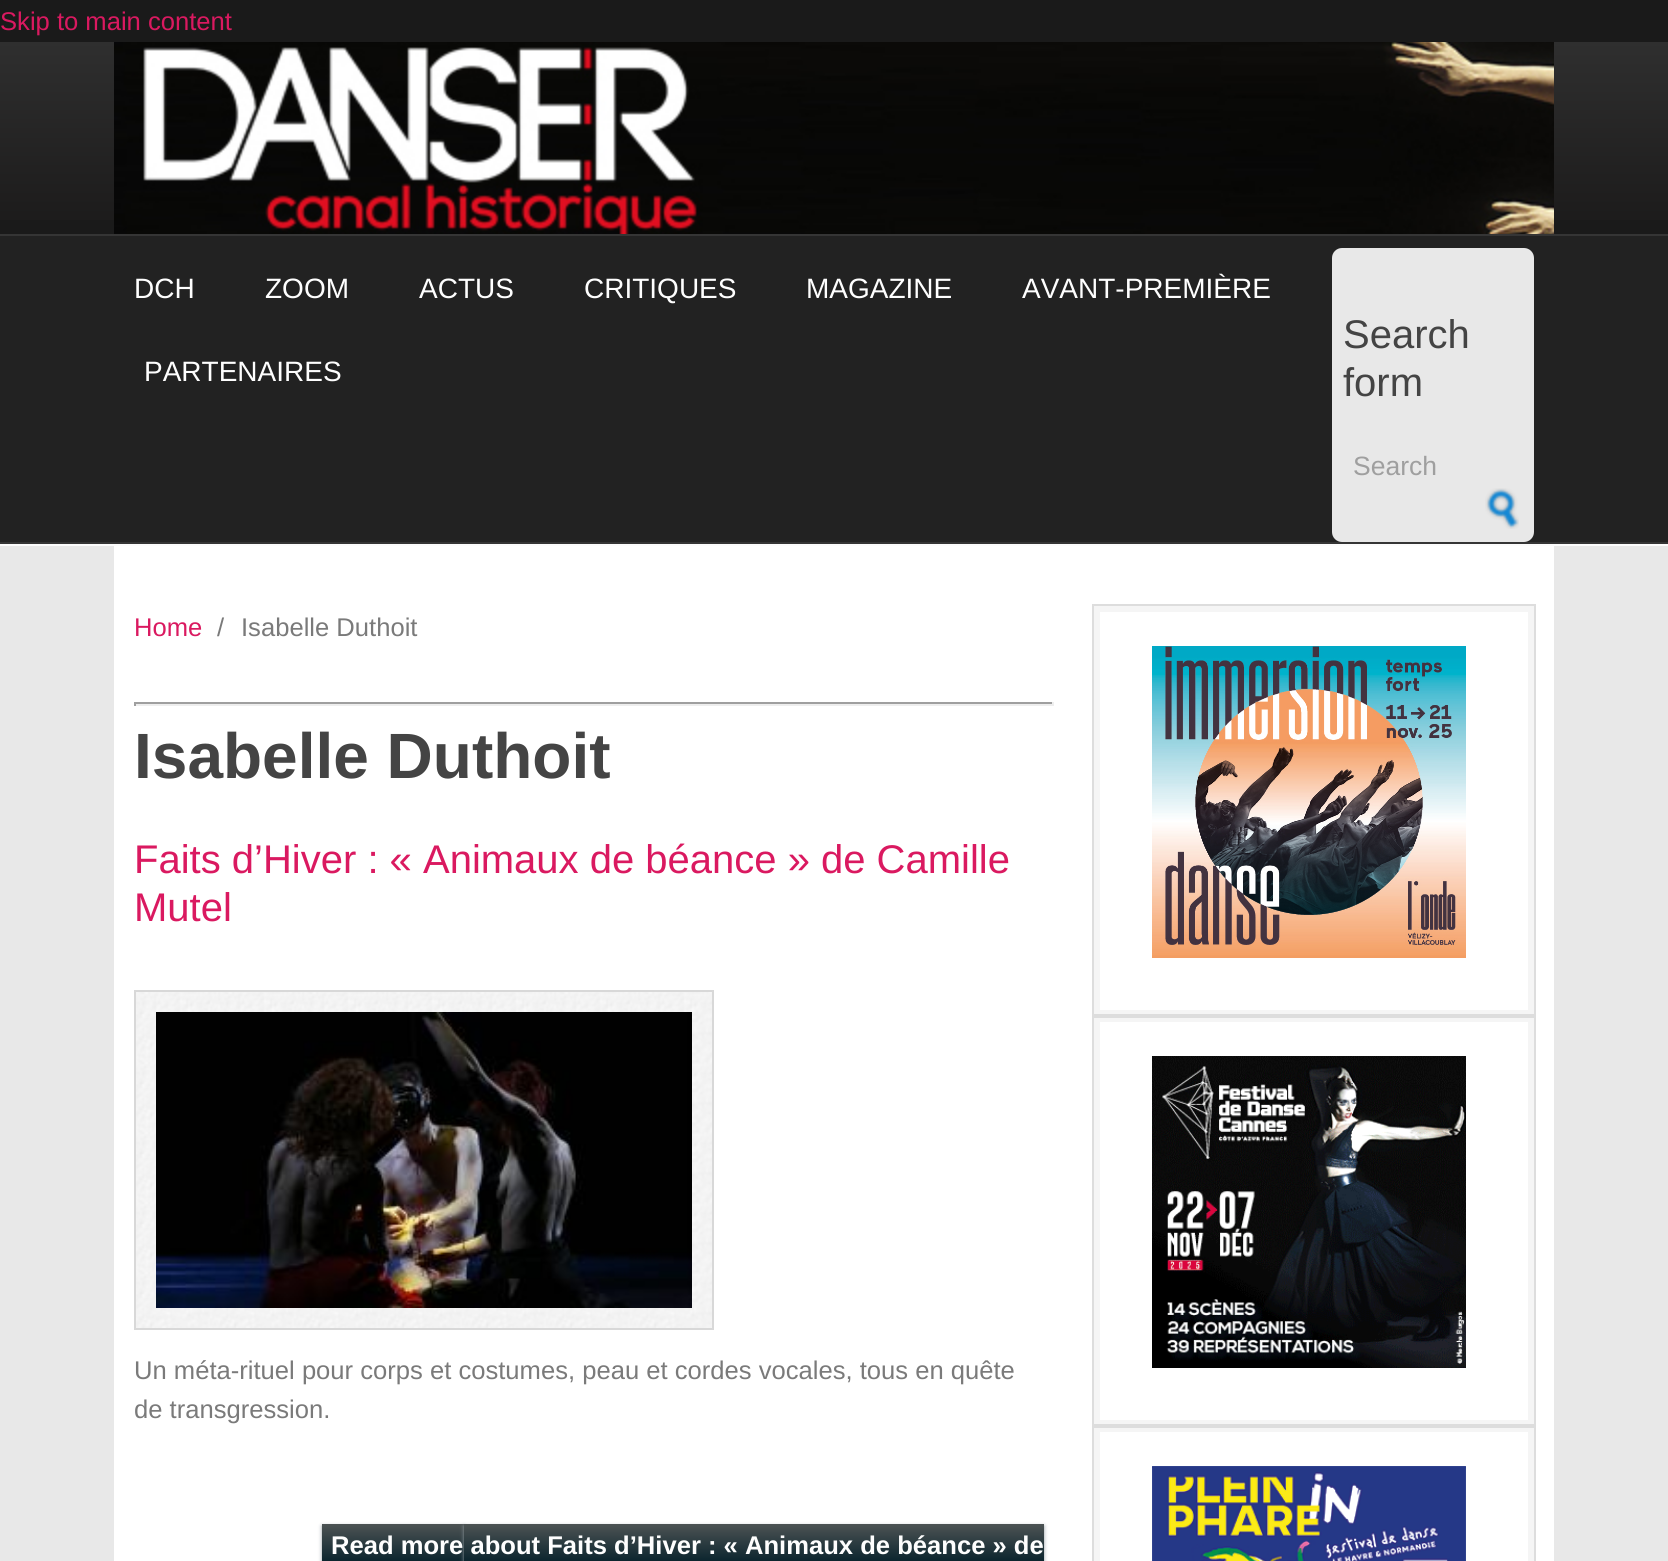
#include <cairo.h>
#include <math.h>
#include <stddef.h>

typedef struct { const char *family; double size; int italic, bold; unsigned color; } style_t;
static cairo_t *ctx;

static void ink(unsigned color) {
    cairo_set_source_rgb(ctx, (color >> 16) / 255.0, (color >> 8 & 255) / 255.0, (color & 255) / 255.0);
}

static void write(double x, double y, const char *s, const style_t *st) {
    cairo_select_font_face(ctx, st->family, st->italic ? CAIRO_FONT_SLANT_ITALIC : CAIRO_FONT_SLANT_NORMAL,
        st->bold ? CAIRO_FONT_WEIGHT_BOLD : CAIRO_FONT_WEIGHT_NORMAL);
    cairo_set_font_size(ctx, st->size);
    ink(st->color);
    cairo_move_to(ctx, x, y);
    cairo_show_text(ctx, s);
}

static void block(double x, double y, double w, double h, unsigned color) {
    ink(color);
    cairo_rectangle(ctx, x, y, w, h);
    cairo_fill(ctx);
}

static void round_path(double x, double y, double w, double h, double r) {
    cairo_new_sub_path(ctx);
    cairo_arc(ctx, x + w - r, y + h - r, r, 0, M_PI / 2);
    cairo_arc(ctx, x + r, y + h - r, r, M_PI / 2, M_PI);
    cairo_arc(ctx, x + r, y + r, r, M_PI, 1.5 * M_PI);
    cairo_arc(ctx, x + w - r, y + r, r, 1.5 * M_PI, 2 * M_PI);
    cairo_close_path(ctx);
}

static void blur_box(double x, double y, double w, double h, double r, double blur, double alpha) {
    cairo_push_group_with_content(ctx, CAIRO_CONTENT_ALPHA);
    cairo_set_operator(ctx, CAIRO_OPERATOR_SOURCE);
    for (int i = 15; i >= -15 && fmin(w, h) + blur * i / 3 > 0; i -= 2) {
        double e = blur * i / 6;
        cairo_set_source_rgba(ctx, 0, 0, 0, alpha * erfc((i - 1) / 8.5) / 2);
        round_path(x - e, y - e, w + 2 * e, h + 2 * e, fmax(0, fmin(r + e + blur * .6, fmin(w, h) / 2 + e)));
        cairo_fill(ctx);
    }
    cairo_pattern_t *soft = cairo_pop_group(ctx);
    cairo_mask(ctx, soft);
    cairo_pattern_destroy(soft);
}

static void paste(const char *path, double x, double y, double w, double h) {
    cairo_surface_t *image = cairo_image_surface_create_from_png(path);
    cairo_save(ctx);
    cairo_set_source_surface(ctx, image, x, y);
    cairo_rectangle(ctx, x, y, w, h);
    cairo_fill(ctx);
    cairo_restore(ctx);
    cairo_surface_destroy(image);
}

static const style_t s1 = {"Liberation Sans", 25.6, 0, 0, 0xda1960};
static const style_t s2 = {"Liberation Sans", 28, 0, 0, 0xfefefe};
static const style_t s3 = {"Liberation Sans", 40, 0, 0, 0x444444};
static const style_t s4 = {"Liberation Sans", 26.5, 0, 0, 0x9f9f9f};
static const style_t s5 = {"Liberation Sans", 25.6, 0, 0, 0x7a7a7a};
static const style_t s6 = {"Liberation Sans", 64, 0, 1, 0x444444};
static const style_t s7 = {"Liberation Sans", 40, 0, 0, 0xda1960};
static const style_t s8 = {"Liberation Sans", 25.6, 0, 1, 0xfefefe};

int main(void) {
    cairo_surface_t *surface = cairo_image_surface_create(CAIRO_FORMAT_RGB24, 1668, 1561);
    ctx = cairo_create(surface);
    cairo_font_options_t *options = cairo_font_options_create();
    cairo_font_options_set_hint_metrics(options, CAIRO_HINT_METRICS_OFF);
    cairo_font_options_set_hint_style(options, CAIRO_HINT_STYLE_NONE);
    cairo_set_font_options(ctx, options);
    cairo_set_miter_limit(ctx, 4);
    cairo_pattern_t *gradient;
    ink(0x1a1a1a);
    cairo_paint(ctx);
    write(0, 30, "Skip to main content", &s1);
    gradient = cairo_pattern_create_linear(834, 42, 834, 234);
    cairo_pattern_add_color_stop_rgba(gradient, 0, 0.184, 0.184, 0.184, 1);
    cairo_pattern_add_color_stop_rgba(gradient, 1, 0.106, 0.102, 0.102, 1);
    cairo_set_source(ctx, gradient);
    cairo_pattern_destroy(gradient);
    cairo_rectangle(ctx, 0, 42, 1668, 178);
    cairo_fill(ctx);
    paste("pic1.png", 114, 42, 1440, 192);
    block(0, 236, 1668, 306, 0x222222);
    block(0, 234, 1668, 2, 0x353535);
    block(0, 542, 1668, 2, 0x353535);
    write(134, 298, "DCH", &s2);
    write(265, 298, "ZOOM", &s2);
    write(419, 298, "ACTUS", &s2);
    write(584, 298, "CRITIQUES", &s2);
    write(806, 298, "MAGAZINE", &s2);
    write(1022, 298, "AVANT-PREMIÈRE", &s2);
    write(144, 381, "PARTENAIRES", &s2);
    ink(0xe8e8e8);
    round_path(1332, 248, 202, 294, 10);
    cairo_fill(ctx);
    write(1343, 348, "Search", &s3);
    write(1343, 396, "form", &s3);
    write(1353, 475, "Search", &s4);
    paste("pic2.png", 1485, 488, 34, 41);
    block(0, 544, 1668, 2, 0xfcfcfc);
    block(0, 546, 1668, 1015, 0xe8e8e8);
    block(114, 546, 1440, 1015, 0xffffff);
    write(134, 636, "Home", &s1);
    write(217, 636, "/", &s5);
    write(241, 636, "Isabelle Duthoit", &s5);
    block(134, 702, 920, 2, 0x9f9f9f);
    block(1052, 702, 2, 4, 0xeeeeee);
    block(134, 704, 920, 2, 0xeeeeee);
    block(134, 702, 2, 4, 0x9f9f9f);
    write(134, 778, "Isabelle Duthoit", &s6);
    write(134, 873, "Faits d’Hiver : « Animaux de béance » de Camille", &s7);
    write(134, 921, "Mutel", &s7);
    paste("pic3.png", 136, 992, 576, 336);
    cairo_rectangle(ctx, 135, 991, 578, 338);
    ink(0xd8d8d8);
    cairo_stroke(ctx);
    write(134, 1379, "Un méta-rituel pour corps et costumes, peau et cordes vocales, tous en quête", &s5);
    write(134, 1418, "de transgression.", &s5);
    ink(0x939da2);
    blur_box(322, 1526, 142, 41, 0, 2, 1);
    gradient = cairo_pattern_create_linear(393, 1524, 393, 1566);
    cairo_pattern_add_color_stop_rgba(gradient, 0, 0.302, 0.325, 0.329, 1);
    cairo_pattern_add_color_stop_rgba(gradient, 1, 0.012, 0.122, 0.161, 1);
    cairo_set_source(ctx, gradient);
    cairo_pattern_destroy(gradient);
    cairo_rectangle(ctx, 322, 1524, 142, 37);
    cairo_fill(ctx);
    ink(0x939da2);
    blur_box(464, 1526, 580, 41, 0, 2, 1);
    gradient = cairo_pattern_create_linear(754, 1524, 754, 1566);
    cairo_pattern_add_color_stop_rgba(gradient, 0, 0.302, 0.325, 0.329, 1);
    cairo_pattern_add_color_stop_rgba(gradient, 1, 0.012, 0.122, 0.161, 1);
    cairo_set_source(ctx, gradient);
    cairo_pattern_destroy(gradient);
    cairo_rectangle(ctx, 464, 1524, 580, 37);
    cairo_fill(ctx);
    write(331, 1554, "Read more about Faits d’Hiver : « Animaux de béance » de", &s8);
    cairo_rectangle(ctx, 1097, 609, 434, 404);
    ink(0xf5f5f5);
    cairo_set_line_width(ctx, 6);
    cairo_stroke(ctx);
    cairo_rectangle(ctx, 1097, 1019, 434, 404);
    cairo_stroke(ctx);
    cairo_rectangle(ctx, 1093, 605, 442, 412);
    ink(0xdddddd);
    cairo_set_line_width(ctx, 2);
    cairo_stroke(ctx);
    paste("pic4.png", 1152, 646, 314, 312);
    cairo_rectangle(ctx, 1097, 1429, 434, 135);
    ink(0xf5f5f5);
    cairo_set_line_width(ctx, 6);
    cairo_stroke(ctx);
    cairo_rectangle(ctx, 1093, 1015, 442, 412);
    ink(0xdddddd);
    cairo_set_line_width(ctx, 2);
    cairo_stroke(ctx);
    paste("pic5.png", 1152, 1056, 314, 312);
    cairo_rectangle(ctx, 1093, 1425, 442, 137);
    cairo_stroke(ctx);
    paste("pic6.png", 1152, 1466, 314, 95);
    cairo_surface_write_to_png(surface, "screenshot.png");
    cairo_font_options_destroy(options);
    cairo_destroy(ctx);
    cairo_surface_destroy(surface);
    return 0;
}
